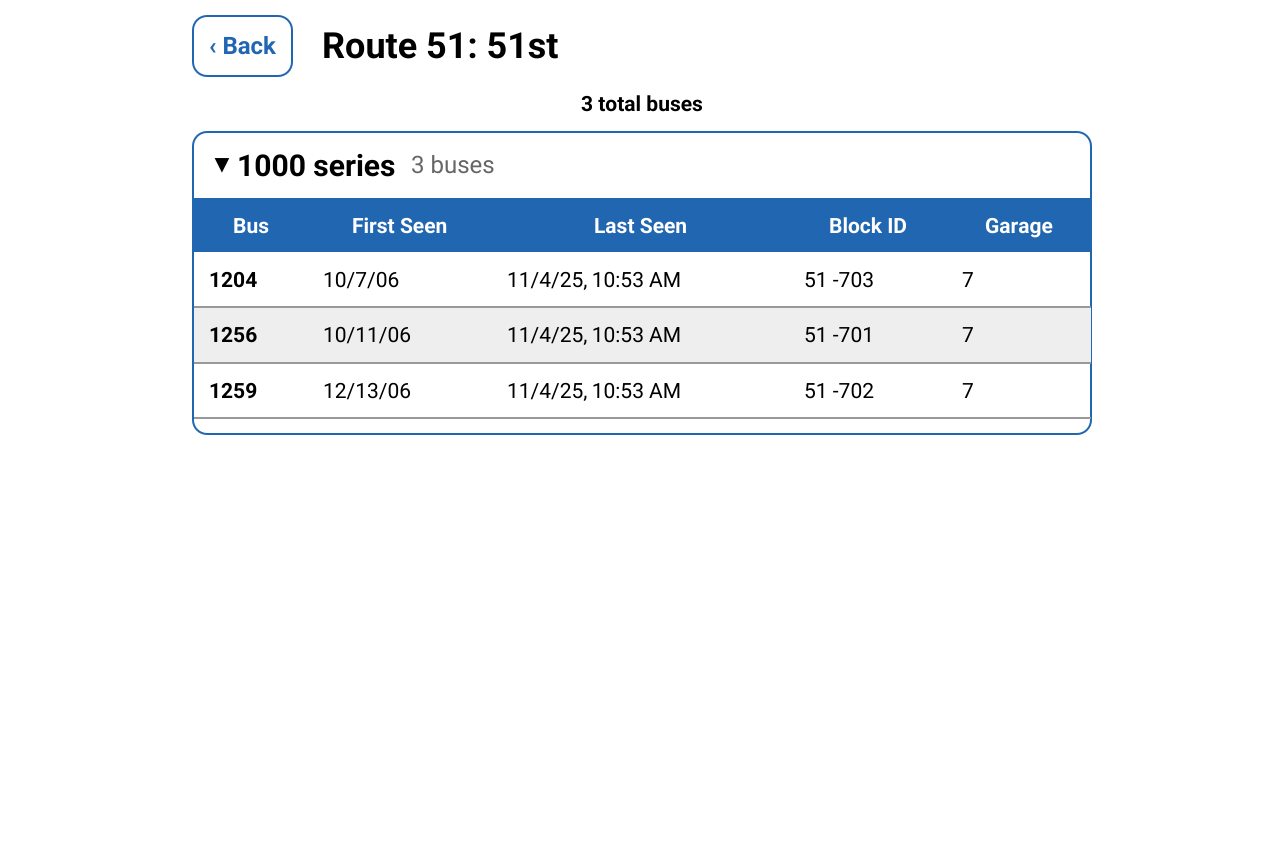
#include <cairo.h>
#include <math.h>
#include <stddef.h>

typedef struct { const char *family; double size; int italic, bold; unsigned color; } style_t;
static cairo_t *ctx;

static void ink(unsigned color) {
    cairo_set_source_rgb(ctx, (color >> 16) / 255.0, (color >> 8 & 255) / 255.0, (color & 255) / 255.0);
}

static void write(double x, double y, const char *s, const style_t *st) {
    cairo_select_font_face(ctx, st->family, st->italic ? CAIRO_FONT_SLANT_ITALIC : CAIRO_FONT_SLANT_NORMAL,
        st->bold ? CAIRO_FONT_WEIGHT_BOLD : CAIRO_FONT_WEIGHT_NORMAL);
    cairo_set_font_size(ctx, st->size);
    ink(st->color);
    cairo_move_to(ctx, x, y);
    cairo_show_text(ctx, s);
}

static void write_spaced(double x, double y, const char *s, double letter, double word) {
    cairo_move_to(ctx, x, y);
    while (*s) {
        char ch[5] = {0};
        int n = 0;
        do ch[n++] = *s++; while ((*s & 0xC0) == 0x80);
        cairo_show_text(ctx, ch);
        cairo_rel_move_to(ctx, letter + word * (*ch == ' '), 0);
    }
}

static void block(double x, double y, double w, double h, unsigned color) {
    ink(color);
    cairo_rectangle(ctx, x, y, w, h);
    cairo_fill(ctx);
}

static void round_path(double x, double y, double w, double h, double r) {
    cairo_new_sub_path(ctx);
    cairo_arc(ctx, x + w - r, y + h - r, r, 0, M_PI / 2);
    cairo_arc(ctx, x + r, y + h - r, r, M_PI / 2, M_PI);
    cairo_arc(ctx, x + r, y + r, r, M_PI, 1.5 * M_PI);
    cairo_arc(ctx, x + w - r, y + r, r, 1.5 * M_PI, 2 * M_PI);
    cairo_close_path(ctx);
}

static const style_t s1 = {"Roboto", 24, 0, 1, 0x2166b1};
static const style_t s2 = {"Roboto", 36, 0, 1, 0x000000};
static const style_t s3 = {"Roboto", 21, 0, 1, 0x000000};
static const style_t s4 = {"DejaVu Sans", 18, 0, 1, 0x000000};
static const style_t s5 = {"Roboto", 30, 0, 1, 0x000000};
static const style_t s6 = {"Roboto", 24, 0, 0, 0x666666};
static const style_t s7 = {"Roboto", 21, 0, 1, 0xffffff};
static const style_t s8 = {"Roboto", 21, 0, 0, 0x000000};

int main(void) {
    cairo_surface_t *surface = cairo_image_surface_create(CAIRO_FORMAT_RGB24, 1283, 844);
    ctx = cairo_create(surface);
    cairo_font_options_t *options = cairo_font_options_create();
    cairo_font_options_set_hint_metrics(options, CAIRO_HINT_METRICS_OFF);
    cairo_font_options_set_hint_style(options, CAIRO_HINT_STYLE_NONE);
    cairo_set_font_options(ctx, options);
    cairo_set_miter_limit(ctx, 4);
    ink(0xffffff);
    cairo_paint(ctx);
    round_path(193, 16, 99, 60, 14);
    ink(0x2166b1);
    cairo_stroke(ctx);
    write(209, 54, "‹ Back", &s1);
    write(322, 58, "Route 51: 51st", &s2);
    write(581, 111, "3 total buses", &s3);
    round_path(193, 132, 898, 302, 14);
    ink(0x2166b1);
    cairo_stroke(ctx);
    cairo_save(ctx);
    cairo_translate(ctx, 217, 158);
    cairo_rotate(ctx, 90 * M_PI / 180);
    write(0, 0, "▶", &s4);
    cairo_restore(ctx);
    write(237, 176, "1000 series", &s5);
    write(411, 173, "3 buses", &s6);
    block(194, 198, 896, 54, 0x2166b1);
    write(233, 233, "Bus", &s7);
    write(352, 233, "First Seen", &s7);
    write(594, 233, "Last Seen", &s7);
    write(829, 233, "Block ID", &s7);
    write(985, 233, "Garage", &s7);
    block(194, 306, 897, 2, 0x999999);
    write(209, 287, "1204", &s3);
    write(323, 287, "10/7/06", &s8);
    write_spaced(507, 287, "11/4/25, 10:53", 0, -1);
    write(649, 287, "AM", &s8);
    write(804, 287, "51 -703", &s8);
    write(962, 287, "7", &s8);
    block(194, 308, 897, 54, 0xeeeeee);
    block(194, 362, 897, 2, 0x999999);
    write(209, 342, "1256", &s3);
    write(323, 342, "10/11/06", &s8);
    write_spaced(507, 342, "11/4/25, 10:53", 0, -1);
    write(649, 342, "AM", &s8);
    write(804, 342, "51 -701", &s8);
    write(962, 342, "7", &s8);
    block(194, 417, 897, 2, 0x999999);
    write(209, 398, "1259", &s3);
    write(323, 398, "12/13/06", &s8);
    write_spaced(507, 398, "11/4/25, 10:53", 0, -1);
    write(649, 398, "AM", &s8);
    write(804, 398, "51 -702", &s8);
    write(962, 398, "7", &s8);
    cairo_surface_write_to_png(surface, "screenshot.png");
    cairo_font_options_destroy(options);
    cairo_destroy(ctx);
    cairo_surface_destroy(surface);
    return 0;
}
